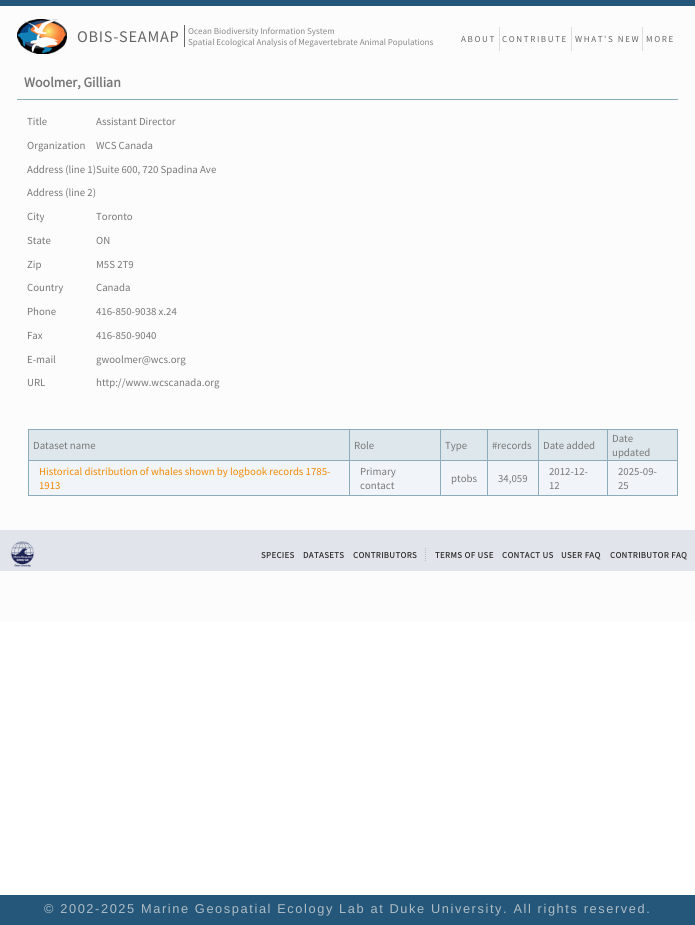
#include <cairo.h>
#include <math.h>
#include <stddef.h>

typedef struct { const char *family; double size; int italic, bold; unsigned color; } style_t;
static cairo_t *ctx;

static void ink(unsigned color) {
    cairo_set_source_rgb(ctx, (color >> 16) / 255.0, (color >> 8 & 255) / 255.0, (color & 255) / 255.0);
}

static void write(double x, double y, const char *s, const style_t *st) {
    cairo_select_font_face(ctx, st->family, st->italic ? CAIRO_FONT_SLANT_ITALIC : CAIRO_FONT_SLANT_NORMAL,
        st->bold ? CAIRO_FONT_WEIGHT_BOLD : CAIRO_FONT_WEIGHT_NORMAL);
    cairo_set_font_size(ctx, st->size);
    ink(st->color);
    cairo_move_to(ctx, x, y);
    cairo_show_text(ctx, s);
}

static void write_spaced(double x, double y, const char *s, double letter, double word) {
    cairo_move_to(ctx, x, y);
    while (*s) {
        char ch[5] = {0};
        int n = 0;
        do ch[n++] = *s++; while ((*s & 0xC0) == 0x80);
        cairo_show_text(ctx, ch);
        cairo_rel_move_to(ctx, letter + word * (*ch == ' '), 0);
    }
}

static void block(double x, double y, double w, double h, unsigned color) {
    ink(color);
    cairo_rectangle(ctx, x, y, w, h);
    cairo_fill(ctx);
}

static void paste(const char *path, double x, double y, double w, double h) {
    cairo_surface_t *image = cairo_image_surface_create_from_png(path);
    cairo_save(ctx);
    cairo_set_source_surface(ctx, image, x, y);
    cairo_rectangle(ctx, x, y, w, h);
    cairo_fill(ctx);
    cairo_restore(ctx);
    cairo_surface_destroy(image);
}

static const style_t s1 = {"Source Sans Pro", 9, 0, 0, 0x888888};
static const style_t s2 = {"Source Sans Pro", 14, 0, 1, 0x777777};
static const style_t s3 = {"Source Sans Pro", 10.8, 0, 0, 0x777777};
static const style_t s4 = {"Source Sans Pro", 10.8, 0, 0, 0xf08800};

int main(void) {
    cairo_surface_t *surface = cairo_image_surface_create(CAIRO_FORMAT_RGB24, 695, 925);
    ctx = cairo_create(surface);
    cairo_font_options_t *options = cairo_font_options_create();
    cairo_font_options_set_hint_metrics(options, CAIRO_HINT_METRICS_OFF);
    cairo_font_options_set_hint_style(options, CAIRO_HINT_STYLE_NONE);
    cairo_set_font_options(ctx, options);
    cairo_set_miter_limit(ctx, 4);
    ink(0xffffff);
    cairo_paint(ctx);
    block(0, 6, 695, 615, 0xfcfcfc);
    block(0, 0, 695, 6, 0x24577a);
    paste("pic1.png", 17, 19, 50, 35);
    cairo_select_font_face(ctx, "Source Sans Pro", CAIRO_FONT_SLANT_NORMAL, CAIRO_FONT_WEIGHT_NORMAL);
    cairo_set_font_size(ctx, 16.25);
    ink(0x666666);
    write_spaced(77, 42, "OBIS-SEAMAP", 0.75, 0);
    block(184, 25, 1, 22, 0x666666);
    write(188, 34, "Ocean Biodiversity Information System", &s1);
    write(188, 45, "Spatial Ecological Analysis of Megavertebrate Animal Populations", &s1);
    ink(0x666666);
    write_spaced(461, 42, "ABOUT", 1.6, 0);
    block(499, 27, 1, 24, 0xdddddd);
    ink(0x666666);
    write_spaced(502, 42, "CONTRIBUTE", 1.6, 0);
    block(571, 27, 1, 24, 0xdddddd);
    ink(0x666666);
    write_spaced(575, 42, "WHAT'S NEW", 1.6, 0);
    block(642, 27, 1, 24, 0xdddddd);
    ink(0x666666);
    write_spaced(646, 42, "MORE", 1.6, 0);
    block(17, 99, 661, 1, 0x8cacbb);
    write(24, 87, "Woolmer, Gillian", &s2);
    write(27, 125, "Title", &s3);
    write(96, 125, "Assistant Director", &s3);
    write(27, 149, "Organization", &s3);
    write(96, 149, "WCS Canada", &s3);
    write(27, 173, "Address (line 1)Suite 600, 720 Spadina Ave", &s3);
    write(27, 196, "Address (line 2)", &s3);
    write(27, 220, "City", &s3);
    write(96, 220, "Toronto", &s3);
    write(27, 244, "State", &s3);
    write(96, 244, "ON", &s3);
    write(27, 268, "Zip", &s3);
    write(96, 268, "M5S 2T9", &s3);
    write(27, 291, "Country", &s3);
    write(96, 291, "Canada", &s3);
    write(27, 315, "Phone", &s3);
    write(96, 315, "416-850-9038 x.24", &s3);
    write(27, 339, "Fax", &s3);
    write(96, 339, "416-850-9040", &s3);
    write(27, 363, "E-mail", &s3);
    write(96, 363, "gwoolmer@wcs.org", &s3);
    write(27, 386, "URL", &s3);
    write(96, 386, "http://www.wcscanada.org", &s3);
    block(28, 429, 650, 1, 0x8cacbb);
    block(28, 495, 650, 1, 0x8cacbb);
    block(28, 429, 1, 67, 0x8cacbb);
    block(29, 430, 320, 30, 0xdee7ec);
    block(29, 461, 648, 34, 0xf1f5fa);
    block(607, 460, 1, 36, 0x8cacbb);
    block(677, 429, 1, 67, 0x8cacbb);
    block(607, 460, 71, 1, 0x8cacbb);
    block(607, 429, 1, 32, 0x8cacbb);
    block(538, 460, 1, 36, 0x8cacbb);
    block(538, 460, 70, 1, 0x8cacbb);
    block(538, 429, 1, 32, 0x8cacbb);
    block(487, 460, 1, 36, 0x8cacbb);
    block(487, 460, 52, 1, 0x8cacbb);
    block(487, 429, 1, 32, 0x8cacbb);
    block(440, 460, 1, 36, 0x8cacbb);
    block(440, 460, 48, 1, 0x8cacbb);
    block(440, 429, 1, 32, 0x8cacbb);
    block(349, 460, 1, 36, 0x8cacbb);
    block(349, 460, 92, 1, 0x8cacbb);
    block(349, 429, 1, 32, 0x8cacbb);
    block(28, 460, 322, 1, 0x8cacbb);
    write(33, 449, "Dataset name", &s3);
    block(350, 430, 90, 30, 0xdee7ec);
    write(354, 449, "Role", &s3);
    block(441, 430, 46, 30, 0xdee7ec);
    write(445, 449, "Type", &s3);
    block(488, 430, 50, 30, 0xdee7ec);
    write(492, 449, "#records", &s3);
    block(539, 430, 68, 30, 0xdee7ec);
    write(543, 449, "Date added", &s3);
    block(608, 430, 69, 30, 0xdee7ec);
    write(612, 442, "Date", &s3);
    write(612, 456, "updated", &s3);
    write(39, 475, "Historical distribution of whales shown by logbook records 1785-", &s4);
    write(39, 489, "1913", &s4);
    write(360, 475, "Primary", &s3);
    write(360, 489, "contact", &s3);
    write(451, 482, "ptobs", &s3);
    write(498, 482, "34,059", &s3);
    write(549, 475, "2012-12-", &s3);
    write(549, 489, "12", &s3);
    write(618, 475, "2025-09-", &s3);
    write(618, 489, "25", &s3);
    block(0, 530, 695, 41, 0xe1e5eb);
    paste("pic2.png", 10, 541, 25, 27);
    cairo_new_path(ctx);
    cairo_move_to(ctx, 425.5, 548);
    cairo_line_to(ctx, 425.5, 562);
    ink(0xbbbbbb);
    cairo_set_line_width(ctx, 1);
    cairo_set_dash(ctx, (double[]){1, 1}, 2, 0);
    cairo_stroke(ctx);
    cairo_select_font_face(ctx, "Source Sans Pro", CAIRO_FONT_SLANT_NORMAL, CAIRO_FONT_WEIGHT_BOLD);
    cairo_set_font_size(ctx, 8.75);
    ink(0x333333);
    write_spaced(261, 558, "SPECIES", 0.4, 0);
    write_spaced(303, 558, "DATASETS", 0.4, 0);
    write_spaced(353, 558, "CONTRIBUTORS", 0.4, 0);
    write_spaced(435, 558, "TERMS OF USE", 0.4, 0);
    write_spaced(502, 558, "CONTACT US", 0.4, 0);
    write_spaced(561, 558, "USER FAQ", 0.4, 0);
    write_spaced(610, 558, "CONTRIBUTOR FAQ", 0.4, 0);
    block(0, 895, 695, 30, 0x24577a);
    cairo_select_font_face(ctx, "Liberation Sans", CAIRO_FONT_SLANT_NORMAL, CAIRO_FONT_WEIGHT_NORMAL);
    cairo_set_font_size(ctx, 12.8);
    ink(0xafbcc4);
    write_spaced(44, 913, "© 2002-2025 Marine Geospatial Ecology Lab at Duke University. All rights reserved.", 1.6, 0);
    cairo_surface_write_to_png(surface, "screenshot.png");
    cairo_font_options_destroy(options);
    cairo_destroy(ctx);
    cairo_surface_destroy(surface);
    return 0;
}
